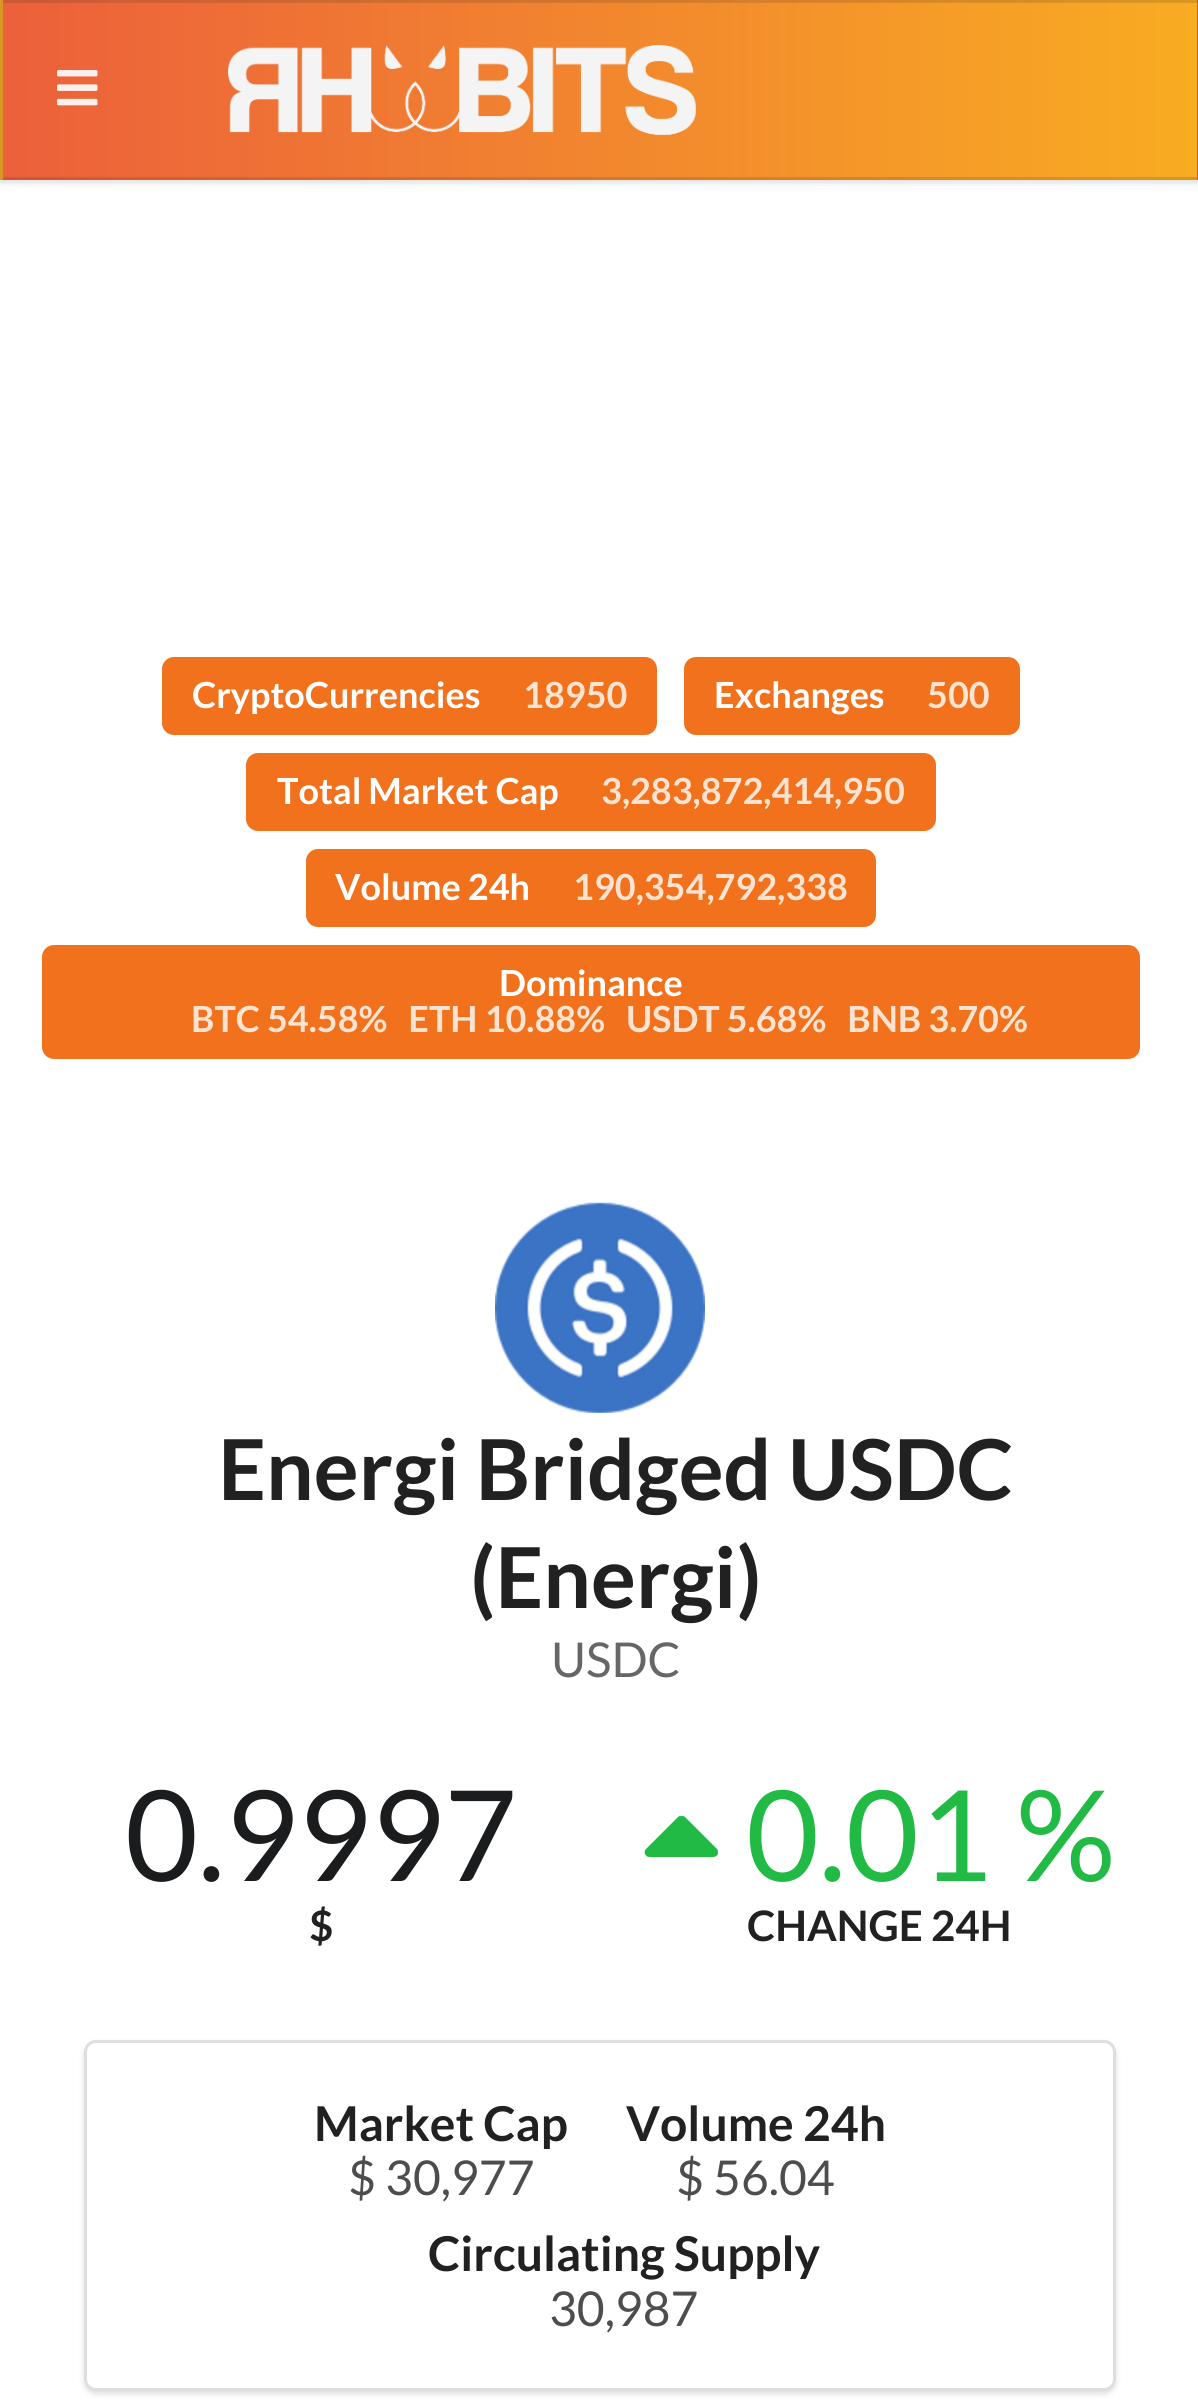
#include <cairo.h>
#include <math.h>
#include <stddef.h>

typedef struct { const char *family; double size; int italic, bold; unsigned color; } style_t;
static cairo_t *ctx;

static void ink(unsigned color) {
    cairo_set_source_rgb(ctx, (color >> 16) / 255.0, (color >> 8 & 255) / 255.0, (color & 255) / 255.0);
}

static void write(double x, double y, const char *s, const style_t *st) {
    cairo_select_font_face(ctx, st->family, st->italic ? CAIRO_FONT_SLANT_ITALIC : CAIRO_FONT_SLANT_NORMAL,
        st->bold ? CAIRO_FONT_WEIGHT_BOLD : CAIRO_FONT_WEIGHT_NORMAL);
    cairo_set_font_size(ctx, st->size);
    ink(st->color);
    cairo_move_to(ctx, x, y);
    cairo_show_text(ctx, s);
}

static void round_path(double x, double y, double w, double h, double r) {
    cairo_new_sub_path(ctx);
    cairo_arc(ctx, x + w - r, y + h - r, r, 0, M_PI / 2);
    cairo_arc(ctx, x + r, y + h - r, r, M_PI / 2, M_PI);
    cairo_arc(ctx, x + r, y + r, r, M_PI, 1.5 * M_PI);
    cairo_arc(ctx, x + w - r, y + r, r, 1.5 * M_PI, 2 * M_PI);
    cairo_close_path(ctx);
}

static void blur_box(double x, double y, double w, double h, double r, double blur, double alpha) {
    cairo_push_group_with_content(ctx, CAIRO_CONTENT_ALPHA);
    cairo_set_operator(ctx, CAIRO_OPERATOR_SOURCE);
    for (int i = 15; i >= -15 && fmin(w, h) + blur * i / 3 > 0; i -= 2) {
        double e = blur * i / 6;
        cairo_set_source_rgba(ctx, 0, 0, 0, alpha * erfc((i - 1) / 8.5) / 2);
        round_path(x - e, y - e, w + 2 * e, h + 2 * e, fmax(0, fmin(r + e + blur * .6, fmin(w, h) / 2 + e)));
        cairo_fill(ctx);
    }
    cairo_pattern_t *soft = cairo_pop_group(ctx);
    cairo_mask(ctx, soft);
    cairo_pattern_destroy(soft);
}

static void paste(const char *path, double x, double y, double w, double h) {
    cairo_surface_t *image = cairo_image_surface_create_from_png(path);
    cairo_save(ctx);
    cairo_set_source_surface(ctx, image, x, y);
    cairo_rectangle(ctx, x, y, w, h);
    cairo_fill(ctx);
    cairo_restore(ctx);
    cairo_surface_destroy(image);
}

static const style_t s1 = {"Lato", 36, 0, 1, 0xffffff};
static const style_t s2 = {"Lato", 36, 0, 1, 0xfce3d2};
static const style_t s3 = {"Lato", 84, 0, 1, 0x212121};
static const style_t s4 = {"Lato", 48, 0, 0, 0x666666};
static const style_t s5 = {"Lato", 126, 0, 0, 0x1b1c1d};
static const style_t s6 = {"Lato", 42, 0, 1, 0x212121};
static const style_t s7 = {"Lato", 126, 0, 0, 0x21ba45};
static const style_t s8 = {"Lato", 48, 0, 1, 0x212121};
static const style_t s9 = {"Lato", 48, 0, 0, 0x4d4d4d};

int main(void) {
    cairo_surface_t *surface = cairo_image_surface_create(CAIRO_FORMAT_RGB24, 1198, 2407);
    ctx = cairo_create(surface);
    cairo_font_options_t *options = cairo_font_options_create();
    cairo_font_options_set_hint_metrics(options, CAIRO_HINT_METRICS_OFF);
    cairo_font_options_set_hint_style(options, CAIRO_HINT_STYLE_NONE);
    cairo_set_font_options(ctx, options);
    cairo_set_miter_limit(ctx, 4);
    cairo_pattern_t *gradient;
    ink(0xffffff);
    cairo_paint(ctx);
    ink(0x222426);
    blur_box(0, 3, 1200, 180, 0, 3, 0.15);
    gradient = cairo_pattern_create_linear(-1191, 90, 3, 90);
    cairo_pattern_add_color_stop_rgba(gradient, 0, 0.925, 0.376, 0.231, 1);
    cairo_pattern_add_color_stop_rgba(gradient, 1, 0.973, 0.675, 0.133, 1);
    cairo_set_source(ctx, gradient);
    cairo_pattern_destroy(gradient);
    cairo_rectangle(ctx, 0, 0, 3, 180);
    cairo_fill(ctx);
    gradient = cairo_pattern_create_linear(3, 90, 1197, 90);
    cairo_pattern_add_color_stop_rgba(gradient, 0, 0.925, 0.376, 0.231, 1);
    cairo_pattern_add_color_stop_rgba(gradient, 1, 0.973, 0.675, 0.133, 1);
    cairo_set_source(ctx, gradient);
    cairo_pattern_destroy(gradient);
    cairo_rectangle(ctx, 3, 0, 1194, 180);
    cairo_fill(ctx);
    gradient = cairo_pattern_create_linear(1197, 90, 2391, 90);
    cairo_pattern_add_color_stop_rgba(gradient, 0, 0.925, 0.376, 0.231, 1);
    cairo_pattern_add_color_stop_rgba(gradient, 1, 0.973, 0.675, 0.133, 1);
    cairo_set_source(ctx, gradient);
    cairo_pattern_destroy(gradient);
    cairo_rectangle(ctx, 1197, 0, 1, 180);
    cairo_fill(ctx);
    cairo_rectangle(ctx, 1.5, 1.5, 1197, 177);
    cairo_set_source_rgba(ctx, 0.133, 0.141, 0.149, 0.15);
    cairo_set_line_width(ctx, 3);
    cairo_stroke(ctx);
    paste("pic1.png", 57, 70, 41, 36);
    paste("pic2.png", 228, 45, 468, 90);
    ink(0xf2711c);
    round_path(162, 657, 495, 78, 12);
    cairo_fill(ctx);
    write(192, 708, "CryptoCurrencies", &s1);
    write(523, 708, "18950", &s2);
    ink(0xf2711c);
    round_path(684, 657, 336, 78, 12);
    cairo_fill(ctx);
    write(714, 708, "Exchanges", &s1);
    write(927, 708, "500", &s2);
    ink(0xf2711c);
    round_path(246, 753, 690, 78, 12);
    cairo_fill(ctx);
    write(277, 804, "Total Market Cap", &s1);
    write(601, 804, "3,283,872,414,950", &s2);
    ink(0xf2711c);
    round_path(306, 849, 570, 78, 12);
    cairo_fill(ctx);
    write(335, 900, "Volume 24h", &s1);
    write(573, 900, "190,354,792,338", &s2);
    ink(0xf2711c);
    round_path(42, 945, 1098, 114, 12);
    cairo_fill(ctx);
    write(499, 996, "Dominance", &s1);
    write(191, 1032, "BTC 54.58%   ETH 10.88%   USDT 5.68%   BNB 3.70%", &s2);
    paste("pic3.png", 495, 1202, 210, 211);
    write(218, 1500, "Energi Bridged USDC", &s3);
    write(470, 1608, "(Energi)", &s3);
    write(551, 1677, "USDC", &s4);
    write(125, 1881, "0.9997", &s5);
    write(309, 1941, "$", &s6);
    ink(0x21ba45);
    cairo_new_path(ctx);
    cairo_move_to(ctx, 713, 1857);
    cairo_line_to(ctx, 650, 1857);
    cairo_curve_to(ctx, 647, 1857, 646, 1856, 645, 1854);
    cairo_curve_to(ctx, 644, 1852, 645, 1850, 646, 1849);
    cairo_line_to(ctx, 678, 1817);
    cairo_curve_to(ctx, 679, 1816, 680, 1816, 681, 1816);
    cairo_curve_to(ctx, 683, 1816, 684, 1816, 685, 1817);
    cairo_line_to(ctx, 717, 1849);
    cairo_curve_to(ctx, 718, 1850, 718, 1852, 718, 1854);
    cairo_curve_to(ctx, 717, 1856, 715, 1857, 713, 1857);
    cairo_close_path(ctx);
    cairo_fill(ctx);
    write(746, 1881, "0.01 %", &s7);
    write(747, 1941, "CHANGE 24H", &s6);
    ink(0x222426);
    blur_box(84, 2043, 1032, 351, 12, 3, 0.15);
    ink(0xffffff);
    round_path(84, 2040, 1032, 351, 12);
    cairo_fill(ctx);
    round_path(85.5, 2041.5, 1029, 348, 10.5);
    cairo_set_source_rgba(ctx, 0.133, 0.141, 0.149, 0.15);
    cairo_stroke(ctx);
    write(314, 2141, "Market Cap", &s8);
    write(348, 2195, "$ 30,977", &s9);
    write(626, 2141, "Volume 24h", &s8);
    write(676, 2195, "$ 56.04", &s9);
    write(428, 2271, "Circulating Supply", &s8);
    write(549, 2326, "30,987", &s9);
    cairo_surface_write_to_png(surface, "screenshot.png");
    cairo_font_options_destroy(options);
    cairo_destroy(ctx);
    cairo_surface_destroy(surface);
    return 0;
}
